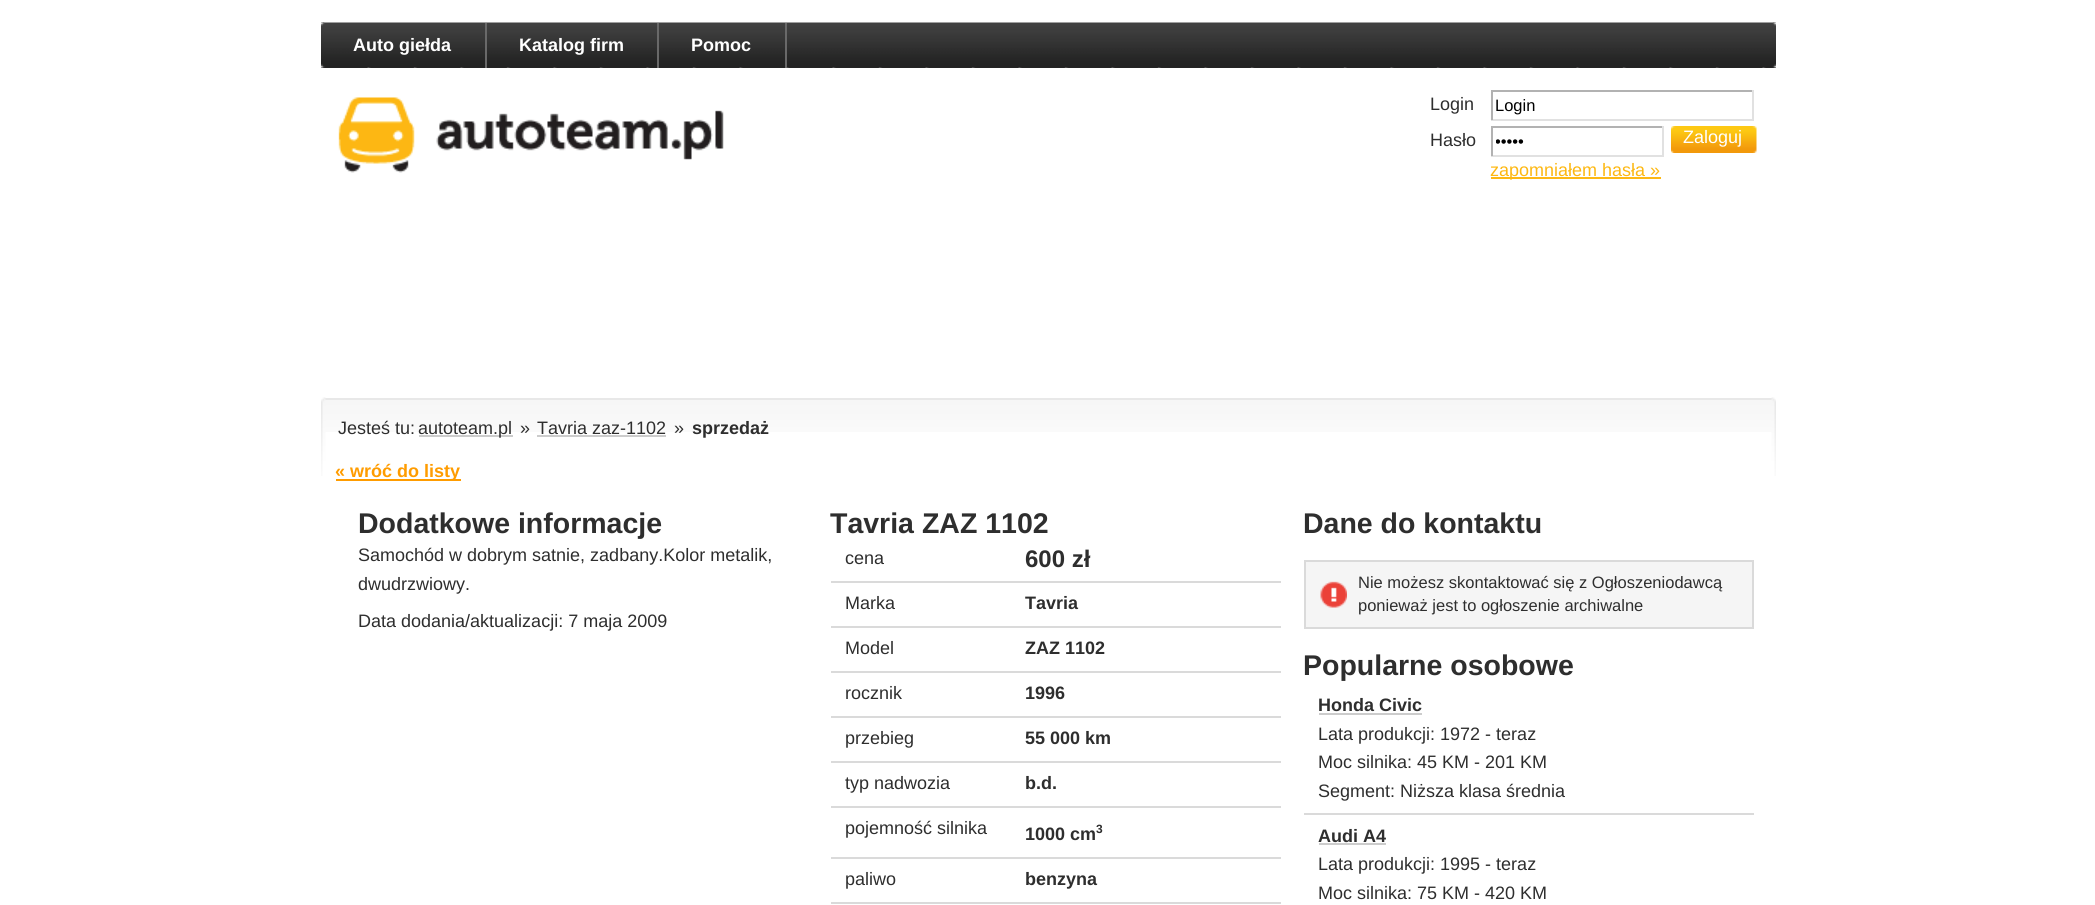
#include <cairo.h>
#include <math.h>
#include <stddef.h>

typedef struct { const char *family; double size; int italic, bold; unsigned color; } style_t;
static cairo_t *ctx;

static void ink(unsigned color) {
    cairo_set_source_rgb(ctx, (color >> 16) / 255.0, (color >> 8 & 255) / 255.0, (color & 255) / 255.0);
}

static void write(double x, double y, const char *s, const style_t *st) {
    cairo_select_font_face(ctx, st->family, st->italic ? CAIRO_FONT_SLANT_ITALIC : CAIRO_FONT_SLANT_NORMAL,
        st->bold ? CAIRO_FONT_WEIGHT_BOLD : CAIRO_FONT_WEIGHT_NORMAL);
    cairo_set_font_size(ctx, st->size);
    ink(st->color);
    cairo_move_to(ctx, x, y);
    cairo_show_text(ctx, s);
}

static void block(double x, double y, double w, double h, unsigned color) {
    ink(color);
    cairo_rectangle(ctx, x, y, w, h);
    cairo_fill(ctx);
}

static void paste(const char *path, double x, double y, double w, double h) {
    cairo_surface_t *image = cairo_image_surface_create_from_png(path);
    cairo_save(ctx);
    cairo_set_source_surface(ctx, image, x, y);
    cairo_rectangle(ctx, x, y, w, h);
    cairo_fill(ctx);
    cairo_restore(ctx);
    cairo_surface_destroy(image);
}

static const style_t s1 = {"Liberation Sans", 18, 0, 1, 0xffffff};
static const style_t s2 = {"Liberation Sans", 18, 0, 0, 0x2e2e2e};
static const style_t s3 = {"Liberation Sans", 16.5, 0, 0, 0x000000};
static const style_t s4 = {"Liberation Sans", 18, 0, 0, 0xffffff};
static const style_t s5 = {"Liberation Sans", 18, 0, 0, 0xfdb813};
static const style_t s6 = {"Liberation Sans", 18, 0, 1, 0x2e2e2e};
static const style_t s7 = {"Liberation Sans", 18, 0, 1, 0xff9c00};
static const style_t s8 = {"Liberation Sans", 28.5, 0, 1, 0x2e2e2e};
static const style_t s9 = {"Liberation Sans", 24, 0, 1, 0x2e2e2e};
static const style_t s10 = {"Liberation Sans", 12, 0, 1, 0x2e2e2e};
static const style_t s11 = {"Liberation Sans", 16.5, 0, 0, 0x2e2e2e};

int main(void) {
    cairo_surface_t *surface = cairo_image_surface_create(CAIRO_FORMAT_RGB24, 2095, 905);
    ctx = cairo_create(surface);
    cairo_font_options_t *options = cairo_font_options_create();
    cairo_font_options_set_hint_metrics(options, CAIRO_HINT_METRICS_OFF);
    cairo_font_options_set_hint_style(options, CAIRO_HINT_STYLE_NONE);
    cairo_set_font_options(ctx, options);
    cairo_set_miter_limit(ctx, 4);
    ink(0xffffff);
    cairo_paint(ctx);
    block(321, 67, 1455, 1, 0x242424);
    paste("pic1.png", 321, 22, 1455, 46);
    paste("pic2.png", 321, 22, 4, 46);
    paste("pic3.png", 1772, 22, 4, 46);
    block(485, 23, 2, 45, 0x696969);
    write(353, 51, "Auto giełda", &s1);
    block(657, 23, 2, 45, 0x696969);
    write(519, 51, "Katalog firm", &s1);
    block(785, 23, 2, 45, 0x696969);
    write(691, 51, "Pomoc", &s1);
    paste("pic4.png", 338, 97, 386, 76);
    write(1430, 110, "Login", &s2);
    block(1491, 90, 263, 2, 0xb2b2b2);
    block(1752, 90, 2, 30, 0xe1e1e1);
    block(1491, 119, 263, 2, 0xe1e1e1);
    block(1491, 90, 2, 30, 0xb2b2b2);
    write(1495, 111, "Login", &s3);
    write(1430, 146, "Hasło", &s2);
    block(1491, 126, 173, 2, 0xb2b2b2);
    block(1662, 126, 2, 30, 0xe1e1e1);
    block(1491, 155, 173, 2, 0xe1e1e1);
    block(1491, 126, 2, 30, 0xb2b2b2);
    cairo_save(ctx);
    cairo_rectangle(ctx, 1496, 129, 165, 24);
    cairo_clip(ctx);
    write(1495, 147, "•••••", &s3);
    cairo_restore(ctx);
    paste("pic5.png", 1671, 126, 86, 27);
    write(1683, 143, "Zaloguj", &s4);
    block(1491, 177, 170, 2, 0xfdb813);
    write(1490, 176, "zapomniałem hasła »", &s5);
    paste("pic6.png", 325, 400, 1447, 32);
    block(321, 398, 1455, 2, 0xe8e8e8);
    paste("pic7.png", 321, 397, 5, 79);
    write(338, 434, "Jesteś tu:", &s2);
    block(419, 435, 94, 2, 0xcccccc);
    write(418, 434, "autoteam.pl", &s2);
    write(520, 434, "»", &s2);
    write(537, 434, "Tavria zaz-1102", &s2);
    block(537, 435, 129, 2, 0xcccccc);
    write(674, 434, "»", &s2);
    write(692, 434, "sprzedaż", &s6);
    paste("pic8.png", 1771, 397, 5, 79);
    block(336, 479, 125, 2, 0xff9c00);
    write(335, 477, "« wróć do listy", &s7);
    write(358, 533, "Dodatkowe informacje", &s8);
    write(358, 561, "Samochód w dobrym satnie, zadbany.Kolor metalik,", &s2);
    write(358, 590, "dwudrzwiowy.", &s2);
    write(358, 627, "Data dodania/aktualizacji: 7 maja 2009", &s2);
    write(830, 533, "Tavria ZAZ 1102", &s8);
    block(831, 581, 450, 2, 0xdadada);
    write(845, 564, "cena", &s2);
    write(1025, 567, "600 zł", &s9);
    block(831, 626, 450, 2, 0xdadada);
    write(845, 609, "Marka", &s2);
    write(1025, 609, "Tavria", &s6);
    block(831, 671, 450, 2, 0xdadada);
    write(845, 654, "Model", &s2);
    write(1025, 654, "ZAZ 1102", &s6);
    block(831, 716, 450, 2, 0xdadada);
    write(845, 699, "rocznik", &s2);
    write(1025, 699, "1996", &s6);
    block(831, 761, 450, 2, 0xdadada);
    write(845, 744, "przebieg", &s2);
    write(1025, 744, "55 000 km", &s6);
    block(831, 806, 450, 2, 0xdadada);
    write(845, 789, "typ nadwozia", &s2);
    write(1025, 789, "b.d.", &s6);
    block(831, 857, 450, 2, 0xdadada);
    write(845, 834, "pojemność silnika", &s2);
    write(1025, 840, "1000 cm", &s6);
    write(1096, 833, "3", &s10);
    block(831, 902, 450, 2, 0xdadada);
    write(845, 885, "paliwo", &s2);
    write(1025, 885, "benzyna", &s6);
    write(1303, 533, "Dane do kontaktu", &s8);
    block(1306, 562, 446, 65, 0xf5f5f5);
    paste("pic9.png", 1320, 581, 27, 27);
    cairo_rectangle(ctx, 1305, 561, 448, 67);
    ink(0xdadada);
    cairo_stroke(ctx);
    write(1358, 588, "Nie możesz skontaktować się z Ogłoszeniodawcą", &s11);
    write(1358, 611, "ponieważ jest to ogłoszenie archiwalne", &s11);
    write(1303, 675, "Popularne osobowe", &s8);
    block(1304, 813, 450, 2, 0xdadada);
    write(1318, 711, "Honda Civic", &s6);
    block(1319, 713, 103, 2, 0xcccccc);
    write(1318, 740, "Lata produkcji: 1972 - teraz", &s2);
    write(1318, 768, "Moc silnika: 45 KM - 201 KM", &s2);
    write(1318, 797, "Segment: Niższa klasa średnia", &s2);
    write(1318, 842, "Audi A4", &s6);
    block(1319, 843, 67, 2, 0xcccccc);
    write(1318, 870, "Lata produkcji: 1995 - teraz", &s2);
    write(1318, 899, "Moc silnika: 75 KM - 420 KM", &s2);
    cairo_surface_write_to_png(surface, "screenshot.png");
    cairo_font_options_destroy(options);
    cairo_destroy(ctx);
    cairo_surface_destroy(surface);
    return 0;
}
